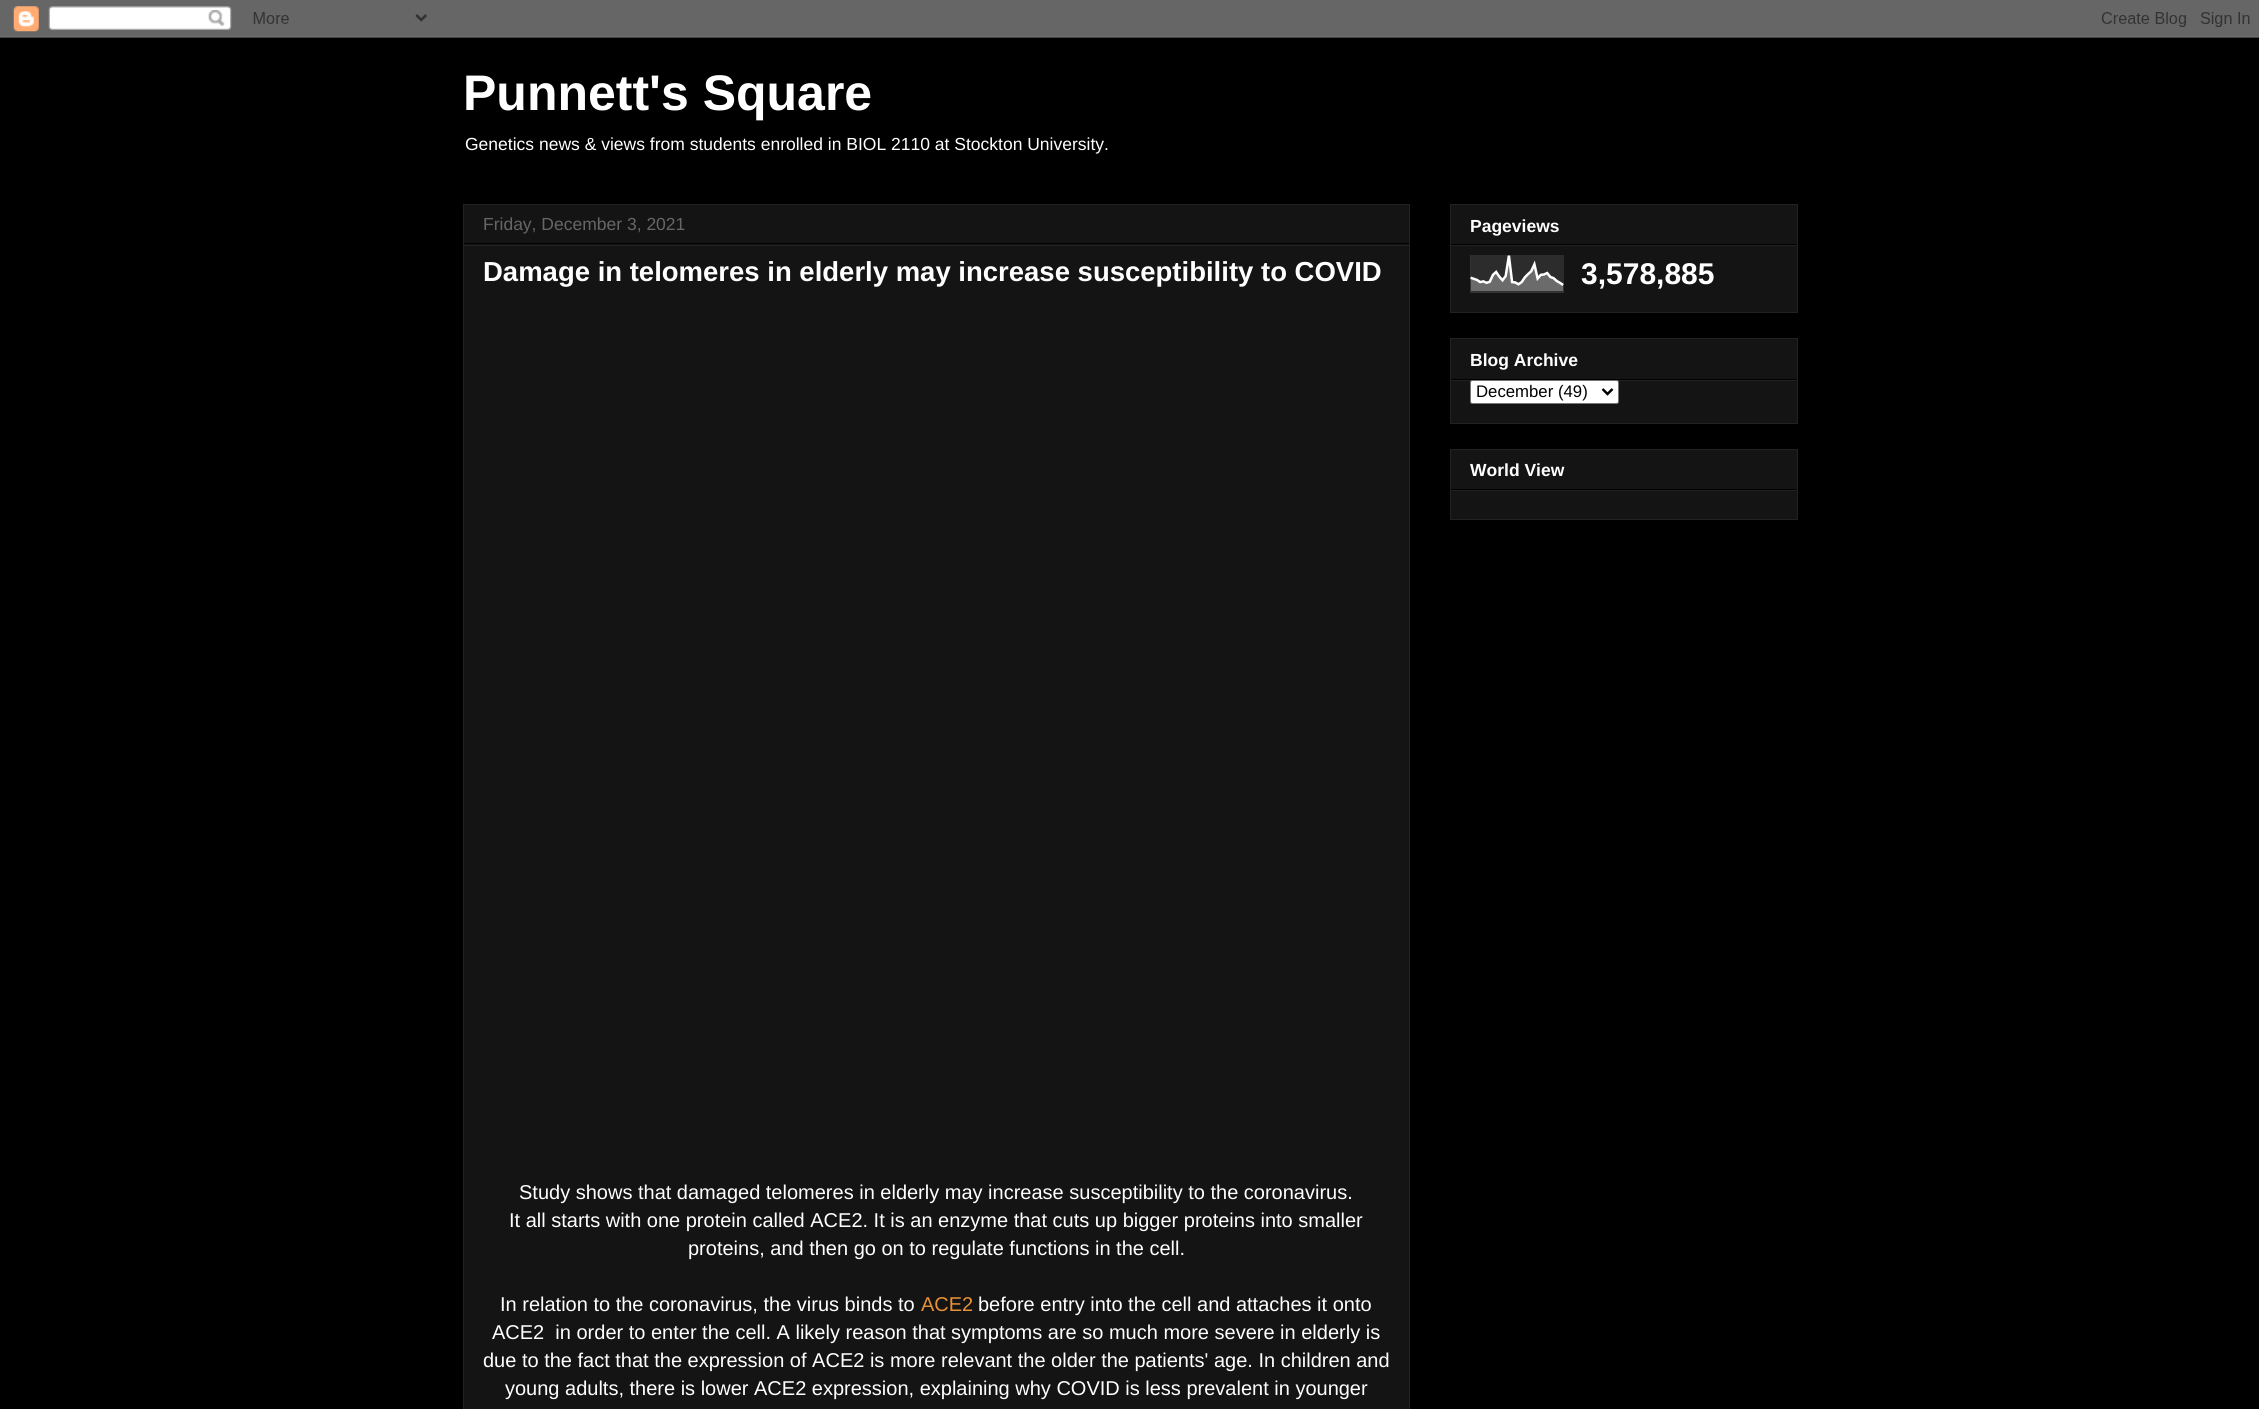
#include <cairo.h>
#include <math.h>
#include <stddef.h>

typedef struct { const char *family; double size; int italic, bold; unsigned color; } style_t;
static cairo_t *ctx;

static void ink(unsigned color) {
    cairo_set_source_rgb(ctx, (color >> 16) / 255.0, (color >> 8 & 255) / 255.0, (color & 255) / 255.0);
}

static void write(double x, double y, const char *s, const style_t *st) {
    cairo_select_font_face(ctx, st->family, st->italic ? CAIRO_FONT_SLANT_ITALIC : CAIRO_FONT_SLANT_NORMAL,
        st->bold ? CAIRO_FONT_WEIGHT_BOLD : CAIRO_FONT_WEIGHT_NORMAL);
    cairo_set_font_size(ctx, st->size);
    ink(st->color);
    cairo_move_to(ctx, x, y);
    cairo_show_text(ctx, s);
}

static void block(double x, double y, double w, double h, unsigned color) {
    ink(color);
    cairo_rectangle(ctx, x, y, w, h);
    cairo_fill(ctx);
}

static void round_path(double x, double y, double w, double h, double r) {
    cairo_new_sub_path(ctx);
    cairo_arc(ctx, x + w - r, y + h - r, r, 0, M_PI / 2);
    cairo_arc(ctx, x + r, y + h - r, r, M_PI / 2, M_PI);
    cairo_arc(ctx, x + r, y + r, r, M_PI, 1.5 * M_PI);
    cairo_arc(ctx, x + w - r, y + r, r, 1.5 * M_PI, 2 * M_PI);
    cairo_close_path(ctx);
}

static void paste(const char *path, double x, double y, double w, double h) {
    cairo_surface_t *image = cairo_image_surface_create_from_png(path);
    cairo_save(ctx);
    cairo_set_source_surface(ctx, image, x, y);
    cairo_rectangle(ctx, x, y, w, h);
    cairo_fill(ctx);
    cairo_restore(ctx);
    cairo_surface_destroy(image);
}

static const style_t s1 = {"Liberation Sans", 50, 0, 1, 0xffffff};
static const style_t s2 = {"Liberation Sans", 17.5, 0, 0, 0xffffff};
static const style_t s3 = {"Liberation Sans", 17.5, 0, 0, 0x666666};
static const style_t s4 = {"Liberation Sans", 27.5, 0, 1, 0xffffff};
static const style_t s5 = {"Liberation Sans", 20, 0, 0, 0xffffff};
static const style_t s6 = {"Liberation Sans", 20, 0, 0, 0xe69138};
static const style_t s7 = {"Liberation Sans", 17.5, 0, 1, 0xffffff};
static const style_t s8 = {"Liberation Sans", 30, 0, 1, 0xffffff};
static const style_t s9 = {"Liberation Sans", 16.75, 0, 0, 0x000000};

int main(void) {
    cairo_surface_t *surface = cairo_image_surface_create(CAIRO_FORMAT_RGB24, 2259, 1409);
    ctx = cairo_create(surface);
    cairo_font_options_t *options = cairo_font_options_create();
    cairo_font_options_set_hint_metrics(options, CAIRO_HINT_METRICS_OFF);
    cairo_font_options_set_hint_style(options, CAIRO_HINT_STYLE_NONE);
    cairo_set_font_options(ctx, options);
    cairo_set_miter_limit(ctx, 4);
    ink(0x000000);
    cairo_paint(ctx);
    paste("pic1.png", 0, 0, 2259, 38);
    write(463, 110, "Punnett's Square", &s1);
    write(465, 150, "Genetics news & views from students enrolled in BIOL 2110 at Stockton University.", &s2);
    ink(0x141414);
    cairo_rectangle(ctx, 463.5, 204.5, 946, 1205);
    cairo_fill_preserve(ctx);
    ink(0x222222);
    cairo_set_line_width(ctx, 1);
    cairo_stroke(ctx);
    block(464, 243, 945, 1, 0x000000);
    write(483, 230, "Friday, December 3, 2021", &s3);
    block(464, 245, 945, 1, 0x222222);
    write(483, 281, "Damage in telomeres in elderly may increase susceptibility to COVID", &s4);
    write(519, 1199, "Study shows that damaged telomeres in elderly may increase susceptibility to the coronavirus.", &s5);
    write(509, 1227, "It all starts with one protein called ACE2. It is an enzyme that cuts up bigger proteins into smaller", &s5);
    write(688, 1255, "proteins, and then go on to regulate functions in the cell.", &s5);
    write(500, 1311, "In relation to the coronavirus, the virus binds to", &s5);
    write(921, 1311, "ACE2", &s6);
    write(978, 1311, "before entry into the cell and attaches it onto", &s5);
    write(492, 1339, "ACE2  in order to enter the cell. A likely reason that symptoms are so much more severe in elderly is", &s5);
    write(483, 1367, "due to the fact that the expression of ACE2 is more relevant the older the patients' age. In children and", &s5);
    write(505, 1395, "young adults, there is lower ACE2 expression, explaining why COVID is less prevalent in younger", &s5);
    ink(0x141414);
    cairo_rectangle(ctx, 1450.5, 204.5, 347, 108);
    cairo_fill_preserve(ctx);
    ink(0x222222);
    cairo_stroke(ctx);
    block(1451, 244, 345, 1, 0x000000);
    write(1470, 232, "Pageviews", &s7);
    block(1451, 245, 345, 1, 0x222222);
    paste("pic2.png", 1470, 255, 94, 38);
    write(1581, 284, "3,578,885", &s8);
    ink(0x141414);
    cairo_rectangle(ctx, 1450.5, 338.5, 347, 85);
    cairo_fill_preserve(ctx);
    ink(0x222222);
    cairo_stroke(ctx);
    block(1451, 379, 345, 1, 0x000000);
    write(1470, 366, "Blog Archive", &s7);
    block(1451, 380, 345, 1, 0x222222);
    ink(0xffffff);
    round_path(1470.5, 380.5, 148, 23, 2);
    cairo_fill_preserve(ctx);
    ink(0x767676);
    cairo_stroke(ctx);
    cairo_new_path(ctx);
    cairo_move_to(ctx, 1602.5, 389);
    cairo_line_to(ctx, 1607.5, 394);
    cairo_line_to(ctx, 1612.5, 389);
    ink(0x000000);
    cairo_set_line_width(ctx, 2.5);
    cairo_stroke(ctx);
    write(1476, 397, "December (49)", &s9);
    ink(0x141414);
    cairo_rectangle(ctx, 1450.5, 449.5, 347, 70);
    cairo_fill_preserve(ctx);
    ink(0x222222);
    cairo_set_line_width(ctx, 1);
    cairo_stroke(ctx);
    block(1451, 489, 345, 1, 0x000000);
    write(1470, 476, "World View", &s7);
    block(1451, 490, 345, 1, 0x222222);
    cairo_surface_write_to_png(surface, "screenshot.png");
    cairo_font_options_destroy(options);
    cairo_destroy(ctx);
    cairo_surface_destroy(surface);
    return 0;
}
